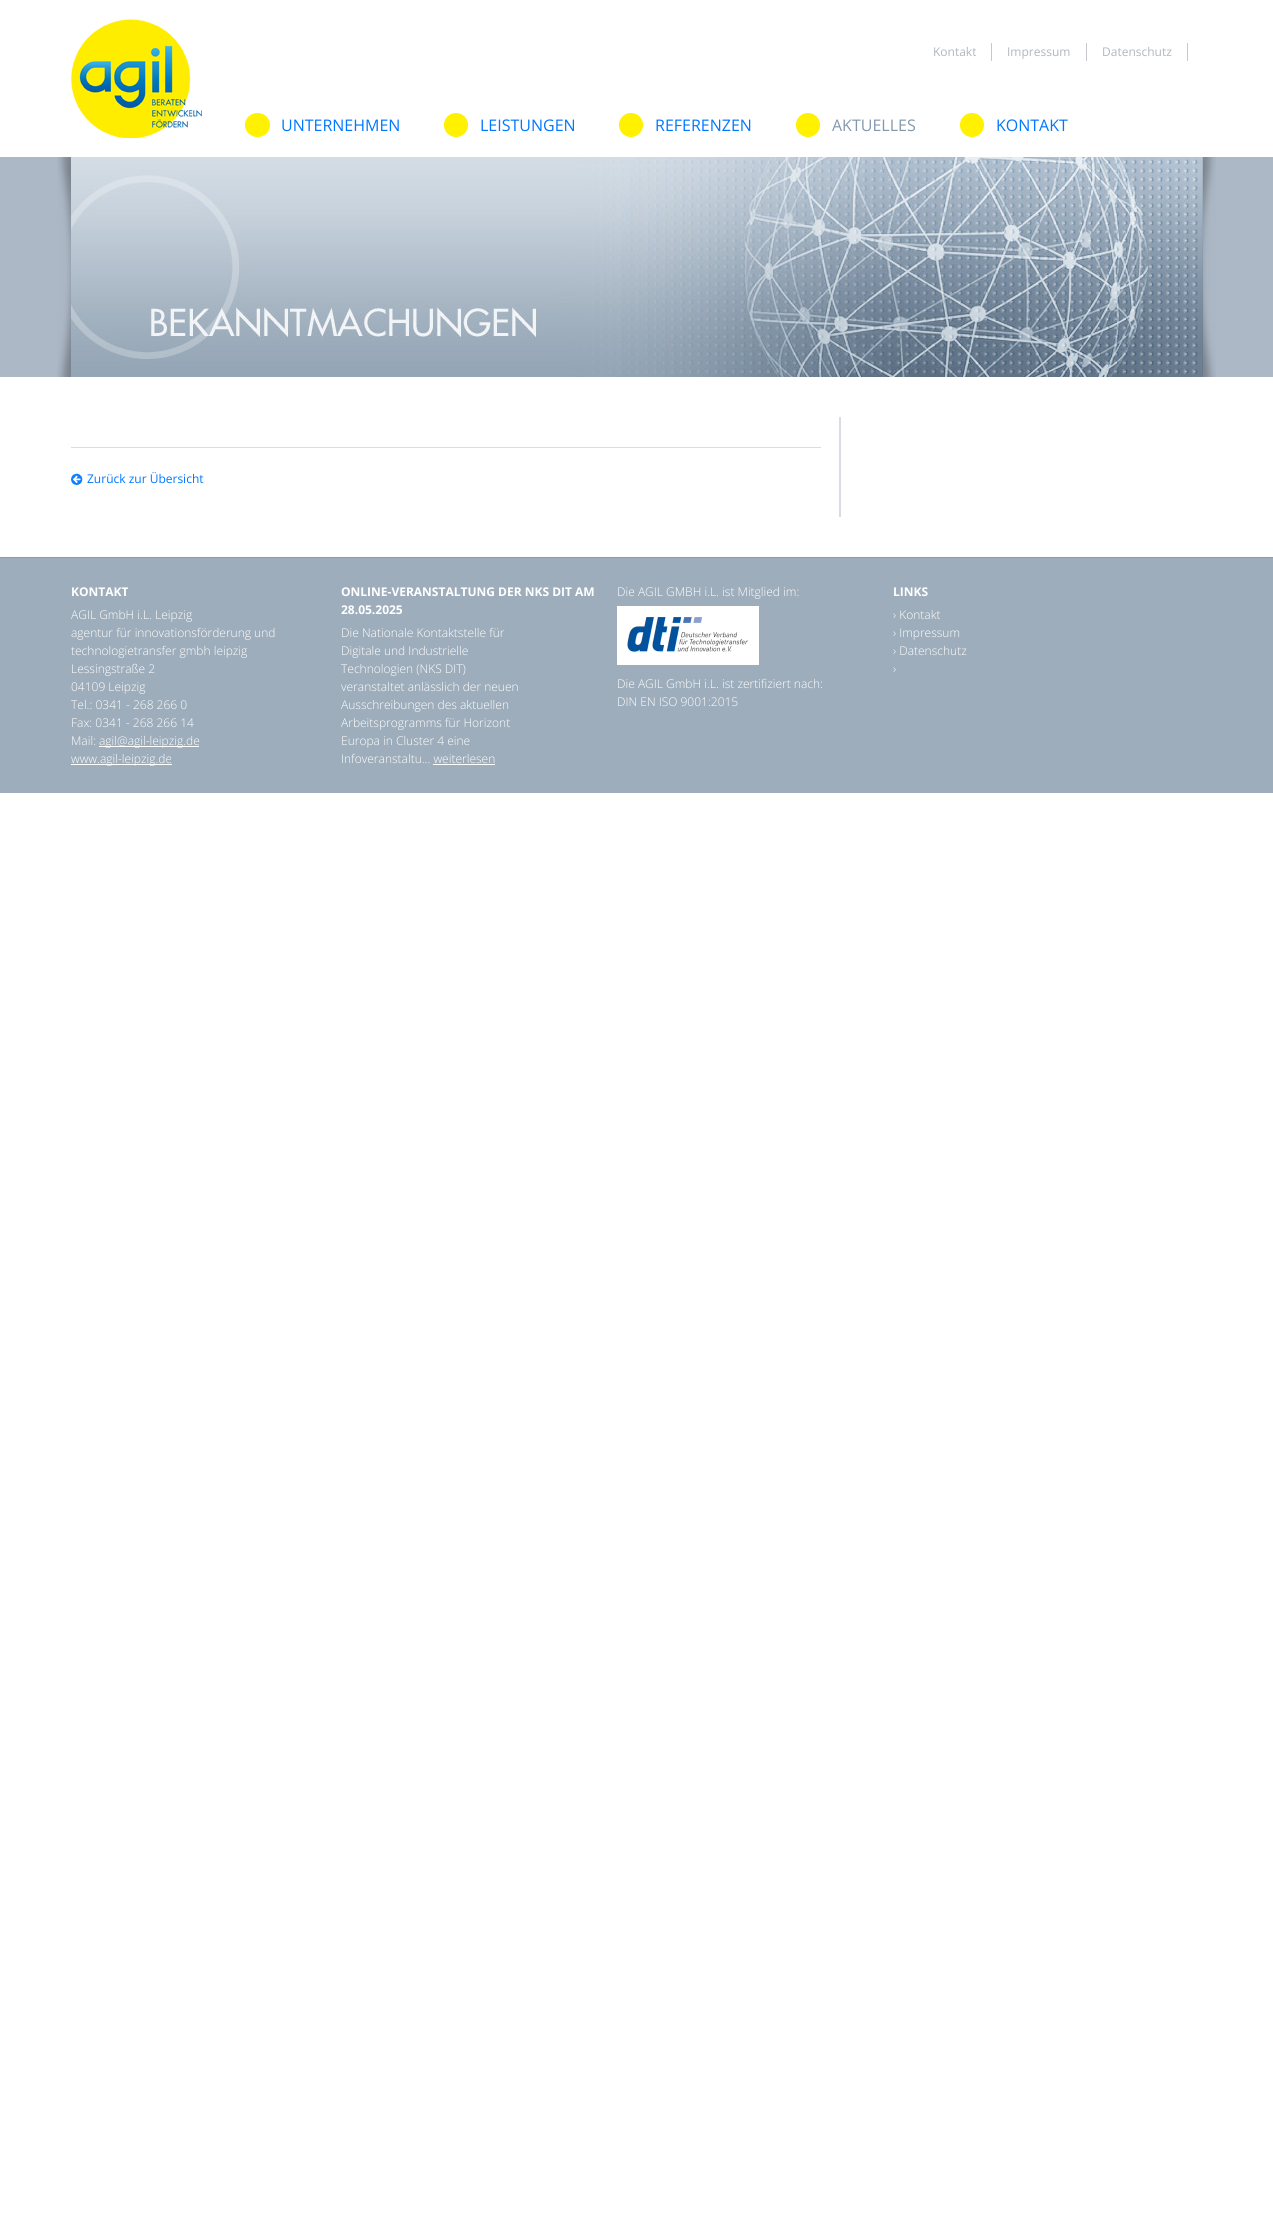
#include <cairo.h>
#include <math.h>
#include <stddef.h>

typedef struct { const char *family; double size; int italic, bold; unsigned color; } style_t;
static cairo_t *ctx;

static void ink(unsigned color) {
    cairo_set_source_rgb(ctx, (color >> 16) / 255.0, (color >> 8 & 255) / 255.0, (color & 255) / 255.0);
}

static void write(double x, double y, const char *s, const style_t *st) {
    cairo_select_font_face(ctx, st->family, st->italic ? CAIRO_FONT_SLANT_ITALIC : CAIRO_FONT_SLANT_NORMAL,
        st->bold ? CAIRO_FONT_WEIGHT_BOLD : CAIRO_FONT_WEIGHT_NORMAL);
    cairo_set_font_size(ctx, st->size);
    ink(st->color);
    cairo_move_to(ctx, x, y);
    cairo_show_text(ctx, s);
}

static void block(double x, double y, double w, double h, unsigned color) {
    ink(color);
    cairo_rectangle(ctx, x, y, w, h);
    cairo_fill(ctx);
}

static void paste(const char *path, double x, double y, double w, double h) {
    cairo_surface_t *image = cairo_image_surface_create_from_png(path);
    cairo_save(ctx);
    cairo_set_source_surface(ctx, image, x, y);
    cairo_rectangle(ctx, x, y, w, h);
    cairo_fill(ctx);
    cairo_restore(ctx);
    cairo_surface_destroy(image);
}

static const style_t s1 = {"Open Sans", 12, 0, 0, 0xb1b7bd};
static const style_t s2 = {"Open Sans", 16, 0, 0, 0x0077ff};
static const style_t s3 = {"Open Sans", 16, 0, 0, 0x8397ac};
static const style_t s4 = {"Open Sans", 12, 0, 0, 0x0077ff};
static const style_t s5 = {"Open Sans", 12, 0, 1, 0xffffff};
static const style_t s6 = {"Open Sans Light", 12, 0, 0, 0xffffff};

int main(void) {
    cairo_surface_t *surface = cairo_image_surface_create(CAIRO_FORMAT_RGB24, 1273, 2226);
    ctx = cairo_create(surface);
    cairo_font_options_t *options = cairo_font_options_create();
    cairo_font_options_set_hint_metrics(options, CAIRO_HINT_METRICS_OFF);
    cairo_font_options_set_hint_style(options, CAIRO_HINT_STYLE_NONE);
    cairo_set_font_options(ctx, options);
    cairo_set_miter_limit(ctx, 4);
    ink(0xffffff);
    cairo_paint(ctx);
    paste("pic1.png", 71, 19, 131, 119);
    block(991, 43, 1, 18, 0xc5c9ce);
    write(933, 56, "Kontakt", &s1);
    block(1086, 43, 1, 18, 0xc5c9ce);
    write(1007, 56, "Impressum", &s1);
    block(1187, 43, 1, 18, 0xc5c9ce);
    write(1102, 56, "Datenschutz", &s1);
    paste("pic2.png", 245, 113, 25, 24);
    write(281, 131, "UNTERNEHMEN", &s2);
    paste("pic3.png", 444, 113, 24, 24);
    write(480, 131, "LEISTUNGEN", &s2);
    paste("pic3.png", 619, 113, 24, 24);
    write(655, 131, "REFERENZEN", &s2);
    paste("pic3.png", 796, 113, 24, 24);
    write(832, 131, "AKTUELLES", &s3);
    paste("pic3.png", 960, 113, 24, 24);
    write(996, 131, "KONTAKT", &s2);
    block(0, 157, 1273, 220, 0xacb8c6);
    paste("pic4.png", 57, 157, 1159, 220);
    paste("pic5.png", 71, 157, 1132, 220);
    block(71, 447, 750, 1, 0xd9dce1);
    paste("pic6.png", 71, 473, 12, 12);
    write(87, 483, "Zurück zur Übersicht", &s4);
    block(839, 417, 2, 100, 0xd9dce1);
    block(0, 558, 1273, 235, 0x9eadbb);
    block(0, 557, 1273, 1, 0x8e9ba9);
    write(71, 596, "KONTAKT", &s5);
    write(71, 619, "AGIL GmbH i.L. Leipzig", &s6);
    write(71, 637, "agentur für innovationsförderung und", &s6);
    write(71, 655, "technologietransfer gmbh leipzig", &s6);
    write(71, 673, "Lessingstraße 2", &s6);
    write(71, 691, "04109 Leipzig", &s6);
    write(71, 709, "Tel.: 0341 - 268 266 0", &s6);
    write(71, 727, "Fax: 0341 - 268 266 14", &s6);
    write(71, 745, "Mail:", &s6);
    block(99, 746, 100, 1, 0xffffff);
    write(99, 745, "agil@agil-leipzig.de", &s6);
    block(71, 764, 101, 1, 0xffffff);
    write(71, 763, "www.agil-leipzig.de", &s6);
    write(341, 596, "ONLINE-VERANSTALTUNG DER NKS DIT AM", &s5);
    write(341, 614, "28.05.2025", &s5);
    write(341, 637, "Die Nationale Kontaktstelle für", &s6);
    write(341, 655, "Digitale und Industrielle", &s6);
    write(341, 673, "Technologien (NKS DIT)", &s6);
    write(341, 691, "veranstaltet anlässlich der neuen", &s6);
    write(341, 709, "Ausschreibungen des aktuellen", &s6);
    write(341, 727, "Arbeitsprogramms für Horizont", &s6);
    write(341, 745, "Europa in Cluster 4 eine", &s6);
    write(341, 763, "Infoveranstaltu... weiterlesen", &s6);
    block(433, 764, 62, 1, 0xffffff);
    write(617, 596, "Die AGIL GMBH i.L. ist Mitglied im:", &s6);
    paste("pic7.png", 617, 606, 142, 59);
    write(617, 688, "Die AGIL GmbH i.L. ist zertifiziert nach:", &s6);
    write(617, 706, "DIN EN ISO 9001:2015", &s6);
    write(893, 596, "LINKS", &s5);
    write(893, 619, "› Kontakt", &s6);
    write(893, 637, "› Impressum", &s6);
    write(893, 655, "› Datenschutz", &s6);
    write(893, 673, "›", &s6);
    cairo_surface_write_to_png(surface, "screenshot.png");
    cairo_font_options_destroy(options);
    cairo_destroy(ctx);
    cairo_surface_destroy(surface);
    return 0;
}
